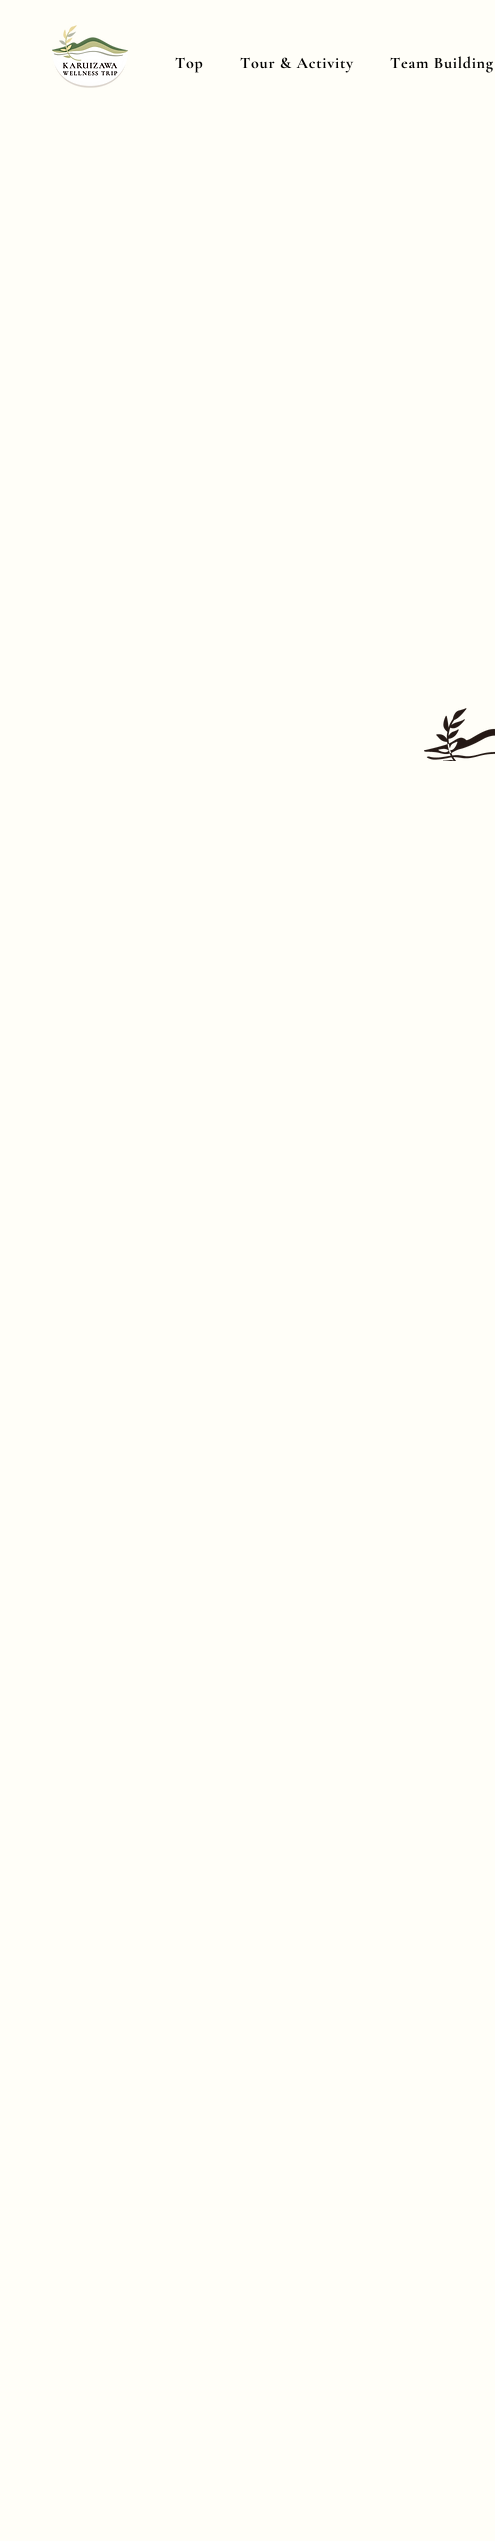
#include <cairo.h>
#include <math.h>
#include <stddef.h>

static cairo_t *ctx;

static void ink(unsigned color) {
    cairo_set_source_rgb(ctx, (color >> 16) / 255.0, (color >> 8 & 255) / 255.0, (color & 255) / 255.0);
}

static void write_spaced(double x, double y, const char *s, double letter, double word) {
    cairo_move_to(ctx, x, y);
    while (*s) {
        char ch[5] = {0};
        int n = 0;
        do ch[n++] = *s++; while ((*s & 0xC0) == 0x80);
        cairo_show_text(ctx, ch);
        cairo_rel_move_to(ctx, letter + word * (*ch == ' '), 0);
    }
}

static void paste(const char *path, double x, double y, double w, double h) {
    cairo_surface_t *image = cairo_image_surface_create_from_png(path);
    cairo_save(ctx);
    cairo_set_source_surface(ctx, image, x, y);
    cairo_rectangle(ctx, x, y, w, h);
    cairo_fill(ctx);
    cairo_restore(ctx);
    cairo_surface_destroy(image);
}

int main(void) {
    cairo_surface_t *surface = cairo_image_surface_create(CAIRO_FORMAT_RGB24, 495, 2541);
    ctx = cairo_create(surface);
    cairo_font_options_t *options = cairo_font_options_create();
    cairo_font_options_set_hint_metrics(options, CAIRO_HINT_METRICS_OFF);
    cairo_font_options_set_hint_style(options, CAIRO_HINT_STYLE_NONE);
    cairo_set_font_options(ctx, options);
    cairo_set_miter_limit(ctx, 4);
    ink(0xfffef8);
    cairo_paint(ctx);
    paste("pic1.png", 52, 25, 76, 63);
    cairo_select_font_face(ctx, "Cormorant Garamond", CAIRO_FONT_SLANT_NORMAL, CAIRO_FONT_WEIGHT_BOLD);
    cairo_set_font_size(ctx, 16);
    ink(0x000000);
    write_spaced(175, 68, "Top", 0.75, 0);
    write_spaced(240, 68, "Tour & Activity", 0.75, 0);
    write_spaced(390, 68, "Team Building", 0.75, 0);
    paste("pic2.png", 424, 708, 71, 53);
    cairo_surface_write_to_png(surface, "screenshot.png");
    cairo_font_options_destroy(options);
    cairo_destroy(ctx);
    cairo_surface_destroy(surface);
    return 0;
}
